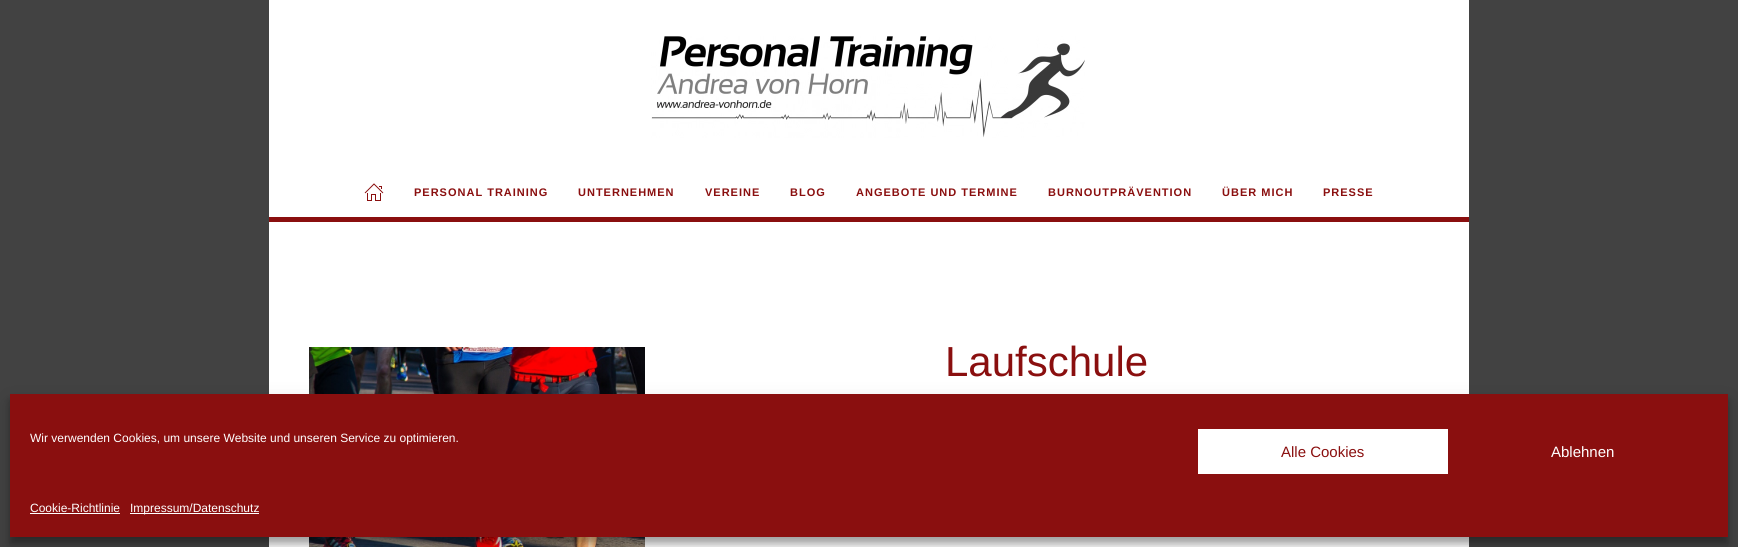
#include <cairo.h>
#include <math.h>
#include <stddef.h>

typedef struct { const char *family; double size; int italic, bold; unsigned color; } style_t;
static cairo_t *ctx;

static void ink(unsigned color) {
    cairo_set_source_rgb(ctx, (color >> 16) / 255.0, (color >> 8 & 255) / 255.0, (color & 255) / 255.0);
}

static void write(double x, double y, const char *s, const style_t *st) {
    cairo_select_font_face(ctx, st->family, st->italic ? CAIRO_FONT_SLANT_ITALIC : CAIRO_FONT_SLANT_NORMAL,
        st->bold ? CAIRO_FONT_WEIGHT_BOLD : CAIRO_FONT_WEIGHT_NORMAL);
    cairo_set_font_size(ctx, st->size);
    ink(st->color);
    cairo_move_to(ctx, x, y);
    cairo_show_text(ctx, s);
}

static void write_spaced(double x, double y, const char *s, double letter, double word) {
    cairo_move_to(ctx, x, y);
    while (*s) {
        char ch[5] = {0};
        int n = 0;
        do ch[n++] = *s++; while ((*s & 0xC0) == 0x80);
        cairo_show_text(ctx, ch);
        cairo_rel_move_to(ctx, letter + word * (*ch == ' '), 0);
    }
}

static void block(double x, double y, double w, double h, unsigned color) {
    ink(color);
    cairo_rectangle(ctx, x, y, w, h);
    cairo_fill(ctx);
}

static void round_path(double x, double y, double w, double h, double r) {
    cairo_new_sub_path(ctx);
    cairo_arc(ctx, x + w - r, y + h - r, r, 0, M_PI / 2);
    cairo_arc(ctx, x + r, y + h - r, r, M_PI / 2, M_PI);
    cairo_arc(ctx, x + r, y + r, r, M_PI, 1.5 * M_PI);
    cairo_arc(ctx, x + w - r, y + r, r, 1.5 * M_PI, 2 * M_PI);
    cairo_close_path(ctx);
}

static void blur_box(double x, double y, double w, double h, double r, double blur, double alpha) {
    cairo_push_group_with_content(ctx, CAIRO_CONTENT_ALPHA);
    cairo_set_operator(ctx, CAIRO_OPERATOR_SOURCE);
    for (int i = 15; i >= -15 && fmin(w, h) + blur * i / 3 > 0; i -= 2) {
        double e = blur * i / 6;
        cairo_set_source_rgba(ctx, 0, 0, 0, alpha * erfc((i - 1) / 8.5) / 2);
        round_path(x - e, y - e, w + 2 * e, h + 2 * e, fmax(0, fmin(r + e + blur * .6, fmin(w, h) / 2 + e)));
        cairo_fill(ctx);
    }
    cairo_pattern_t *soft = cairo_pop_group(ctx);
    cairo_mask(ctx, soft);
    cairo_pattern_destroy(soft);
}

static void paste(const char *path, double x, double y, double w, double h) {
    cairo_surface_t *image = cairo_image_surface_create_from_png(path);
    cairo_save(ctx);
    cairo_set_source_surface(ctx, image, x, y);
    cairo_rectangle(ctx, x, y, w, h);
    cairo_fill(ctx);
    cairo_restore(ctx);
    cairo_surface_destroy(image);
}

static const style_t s1 = {"Liberation Sans", 42, 0, 0, 0x8a0f0f};
static const style_t s2 = {"Liberation Sans", 12, 0, 0, 0xffffff};
static const style_t s3 = {"Liberation Sans", 15, 0, 0, 0x8a0f0f};
static const style_t s4 = {"Liberation Sans", 15, 0, 0, 0xffffff};

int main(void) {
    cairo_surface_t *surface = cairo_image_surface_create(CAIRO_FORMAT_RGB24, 1738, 547);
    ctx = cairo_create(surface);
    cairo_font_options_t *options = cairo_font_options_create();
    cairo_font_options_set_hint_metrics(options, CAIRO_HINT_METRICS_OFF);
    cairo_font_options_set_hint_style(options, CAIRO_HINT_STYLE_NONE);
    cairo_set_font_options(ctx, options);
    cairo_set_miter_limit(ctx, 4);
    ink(0x424242);
    cairo_paint(ctx);
    block(269, 0, 1200, 217, 0xffffff);
    paste("pic1.png", 651, 36, 434, 102);
    block(269, 217, 1200, 5, 0x8a0f0f);
    paste("pic2.png", 364, 183, 20, 18);
    cairo_select_font_face(ctx, "Liberation Sans", CAIRO_FONT_SLANT_NORMAL, CAIRO_FONT_WEIGHT_BOLD);
    cairo_set_font_size(ctx, 11);
    write_spaced(414, 196, "PERSONAL TRAINING", 1, 0);
    write_spaced(578, 196, "UNTERNEHMEN", 1, 0);
    write_spaced(705, 196, "VEREINE", 1, 0);
    write_spaced(790, 196, "BLOG", 1, 0);
    write_spaced(856, 196, "ANGEBOTE UND TERMINE", 1, 0);
    write_spaced(1048, 196, "BURNOUTPRÄVENTION", 1, 0);
    write_spaced(1222, 196, "ÜBER MICH", 1, 0);
    write_spaced(1323, 196, "PRESSE", 1, 0);
    block(269, 222, 1200, 325, 0xffffff);
    paste("pic3.png", 309, 347, 336, 200);
    write(945, 376, "Laufschule", &s1);
    ink(0x000000);
    blur_box(10, 400, 1718, 143, 0, 3, 0.23);
    blur_box(10, 404, 1718, 143, 0, 10, 0.19);
    block(10, 394, 1718, 143, 0x8a0f0f);
    write(30, 442, "Wir verwenden Cookies, um unsere Website und unseren Service zu optimieren.", &s2);
    block(1198, 429, 250, 45, 0xffffff);
    write(1281, 457, "Alle Cookies", &s3);
    write(1551, 457, "Ablehnen", &s4);
    write(30, 512, "Cookie-Richtlinie", &s2);
    block(30, 513, 90, 1, 0xffffff);
    block(130, 513, 129, 1, 0xffffff);
    write(130, 512, "Impressum/Datenschutz", &s2);
    cairo_surface_write_to_png(surface, "screenshot.png");
    cairo_font_options_destroy(options);
    cairo_destroy(ctx);
    cairo_surface_destroy(surface);
    return 0;
}
